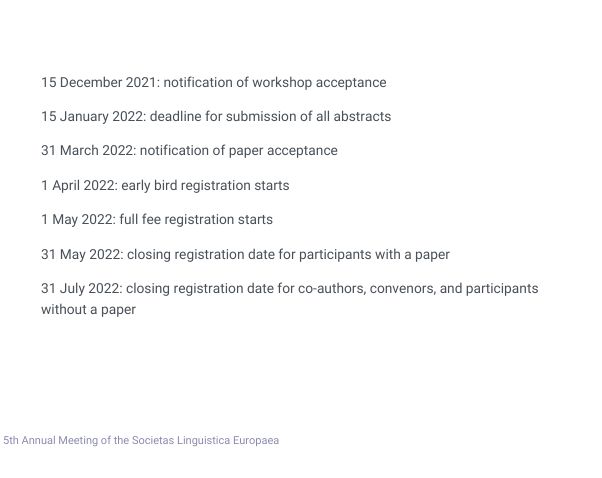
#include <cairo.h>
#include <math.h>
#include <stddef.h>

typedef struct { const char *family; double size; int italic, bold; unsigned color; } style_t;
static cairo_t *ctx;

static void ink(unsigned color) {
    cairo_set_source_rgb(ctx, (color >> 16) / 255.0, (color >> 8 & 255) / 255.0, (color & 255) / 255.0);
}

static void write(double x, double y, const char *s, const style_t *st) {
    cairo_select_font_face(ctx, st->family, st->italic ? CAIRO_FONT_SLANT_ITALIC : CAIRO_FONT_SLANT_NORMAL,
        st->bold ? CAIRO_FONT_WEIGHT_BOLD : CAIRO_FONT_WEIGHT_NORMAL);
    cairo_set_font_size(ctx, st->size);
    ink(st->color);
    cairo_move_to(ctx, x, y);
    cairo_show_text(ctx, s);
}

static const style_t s1 = {"Roboto", 13.75, 0, 0, 0x495057};
static const style_t s2 = {"Roboto", 11, 0, 0, 0x8b8baf};

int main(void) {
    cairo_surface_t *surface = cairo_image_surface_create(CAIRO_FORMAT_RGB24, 602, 478);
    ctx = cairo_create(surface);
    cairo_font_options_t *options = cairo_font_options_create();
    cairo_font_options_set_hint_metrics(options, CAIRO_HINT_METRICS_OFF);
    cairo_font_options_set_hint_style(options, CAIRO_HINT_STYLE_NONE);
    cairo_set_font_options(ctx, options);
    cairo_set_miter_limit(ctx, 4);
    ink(0xffffff);
    cairo_paint(ctx);
    write(41, 87, "15 December 2021: notification of workshop acceptance", &s1);
    write(41, 121, "15 January 2022: deadline for submission of all abstracts", &s1);
    write(41, 155, "31 March 2022: notification of paper acceptance", &s1);
    write(41, 190, "1 April 2022: early bird registration starts", &s1);
    write(41, 224, "1 May 2022: full fee registration starts", &s1);
    write(41, 259, "31 May 2022: closing registration date for participants with a paper", &s1);
    write(41, 293, "31 July 2022: closing registration date for co-authors, convenors, and participants", &s1);
    write(41, 314, "without a paper", &s1);
    write(3, 444, "5th Annual Meeting of the Societas Linguistica Europaea", &s2);
    cairo_surface_write_to_png(surface, "screenshot.png");
    cairo_font_options_destroy(options);
    cairo_destroy(ctx);
    cairo_surface_destroy(surface);
    return 0;
}
